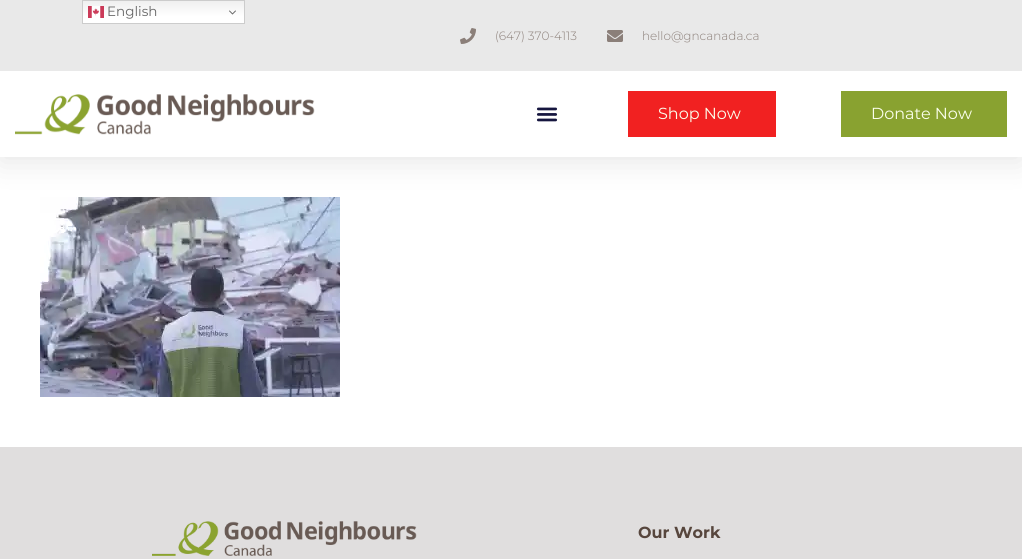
#include <cairo.h>
#include <math.h>
#include <stddef.h>

typedef struct { const char *family; double size; int italic, bold; unsigned color; } style_t;
static cairo_t *ctx;

static void ink(unsigned color) {
    cairo_set_source_rgb(ctx, (color >> 16) / 255.0, (color >> 8 & 255) / 255.0, (color & 255) / 255.0);
}

static void write(double x, double y, const char *s, const style_t *st) {
    cairo_select_font_face(ctx, st->family, st->italic ? CAIRO_FONT_SLANT_ITALIC : CAIRO_FONT_SLANT_NORMAL,
        st->bold ? CAIRO_FONT_WEIGHT_BOLD : CAIRO_FONT_WEIGHT_NORMAL);
    cairo_set_font_size(ctx, st->size);
    ink(st->color);
    cairo_move_to(ctx, x, y);
    cairo_show_text(ctx, s);
}

static void block(double x, double y, double w, double h, unsigned color) {
    ink(color);
    cairo_rectangle(ctx, x, y, w, h);
    cairo_fill(ctx);
}

static void round_path(double x, double y, double w, double h, double r) {
    cairo_new_sub_path(ctx);
    cairo_arc(ctx, x + w - r, y + h - r, r, 0, M_PI / 2);
    cairo_arc(ctx, x + r, y + h - r, r, M_PI / 2, M_PI);
    cairo_arc(ctx, x + r, y + r, r, M_PI, 1.5 * M_PI);
    cairo_arc(ctx, x + w - r, y + r, r, 1.5 * M_PI, 2 * M_PI);
    cairo_close_path(ctx);
}

static void blur_box(double x, double y, double w, double h, double r, double blur, double alpha) {
    cairo_push_group_with_content(ctx, CAIRO_CONTENT_ALPHA);
    cairo_set_operator(ctx, CAIRO_OPERATOR_SOURCE);
    for (int i = 15; i >= -15 && fmin(w, h) + blur * i / 3 > 0; i -= 2) {
        double e = blur * i / 6;
        cairo_set_source_rgba(ctx, 0, 0, 0, alpha * erfc((i - 1) / 8.5) / 2);
        round_path(x - e, y - e, w + 2 * e, h + 2 * e, fmax(0, fmin(r + e + blur * .6, fmin(w, h) / 2 + e)));
        cairo_fill(ctx);
    }
    cairo_pattern_t *soft = cairo_pop_group(ctx);
    cairo_mask(ctx, soft);
    cairo_pattern_destroy(soft);
}

static void paste(const char *path, double x, double y, double w, double h) {
    cairo_surface_t *image = cairo_image_surface_create_from_png(path);
    cairo_save(ctx);
    cairo_set_source_surface(ctx, image, x, y);
    cairo_rectangle(ctx, x, y, w, h);
    cairo_fill(ctx);
    cairo_restore(ctx);
    cairo_surface_destroy(image);
}

static const style_t s1 = {"Montserrat", 13.5, 0, 0, 0x666666};
static const style_t s2 = {"Montserrat Light", 12, 0, 0, 0x8b7f79};
static const style_t s3 = {"Montserrat", 16, 0, 0, 0xfbffec};
static const style_t s4 = {"Montserrat", 16, 0, 1, 0x57463d};

int main(void) {
    cairo_surface_t *surface = cairo_image_surface_create(CAIRO_FORMAT_RGB24, 1022, 559);
    ctx = cairo_create(surface);
    cairo_font_options_t *options = cairo_font_options_create();
    cairo_font_options_set_hint_metrics(options, CAIRO_HINT_METRICS_OFF);
    cairo_font_options_set_hint_style(options, CAIRO_HINT_STYLE_NONE);
    cairo_set_font_options(ctx, options);
    cairo_set_miter_limit(ctx, 4);
    cairo_pattern_t *gradient;
    ink(0xffffff);
    cairo_paint(ctx);
    paste("pic7.png", 40, 197, 300, 200);
    ink(0x000000);
    blur_box(0, 5, 1022, 157, 0, 15, 0.1);
    block(0, 0, 1022, 71, 0xe9e9e9);
    gradient = cairo_pattern_create_linear(164, 0, 164, 24);
    cairo_pattern_add_color_stop_rgba(gradient, 0, 0.937, 0.937, 0.937, 1);
    cairo_pattern_add_color_stop_rgba(gradient, 0.7, 1, 1, 1, 1);
    cairo_set_source(ctx, gradient);
    cairo_pattern_destroy(gradient);
    cairo_rectangle(ctx, 83, 1, 161, 22);
    cairo_fill(ctx);
    cairo_rectangle(ctx, 82.5, 0.5, 162, 23);
    ink(0xcccccc);
    cairo_set_line_width(ctx, 1);
    cairo_stroke(ctx);
    paste("pic1.png", 88, 6, 16, 12);
    write(107, 16, "English", &s1);
    paste("pic2.png", 229, 10, 7, 5);
    paste("pic3.png", 460, 28, 16, 16);
    write(495, 40, "(647) 370-4113", &s2);
    paste("pic4.png", 607, 30, 16, 12);
    write(642, 40, "hello@gncanada.ca", &s2);
    block(0, 71, 1022, 86, 0xffffff);
    paste("pic5.png", 15, 94, 300, 41);
    paste("pic6.png", 536, 107, 22, 15);
    block(628, 91, 148, 46, 0xf12121);
    write(658, 119, "Shop Now", &s3);
    block(841, 91, 166, 46, 0x89a230);
    write(871, 119, "Donate Now", &s3);
    block(0, 447, 1022, 112, 0xe0dede);
    paste("pic8.png", 152, 521, 265, 35);
    write(638, 538, "Our Work", &s4);
    cairo_surface_write_to_png(surface, "screenshot.png");
    cairo_font_options_destroy(options);
    cairo_destroy(ctx);
    cairo_surface_destroy(surface);
    return 0;
}
